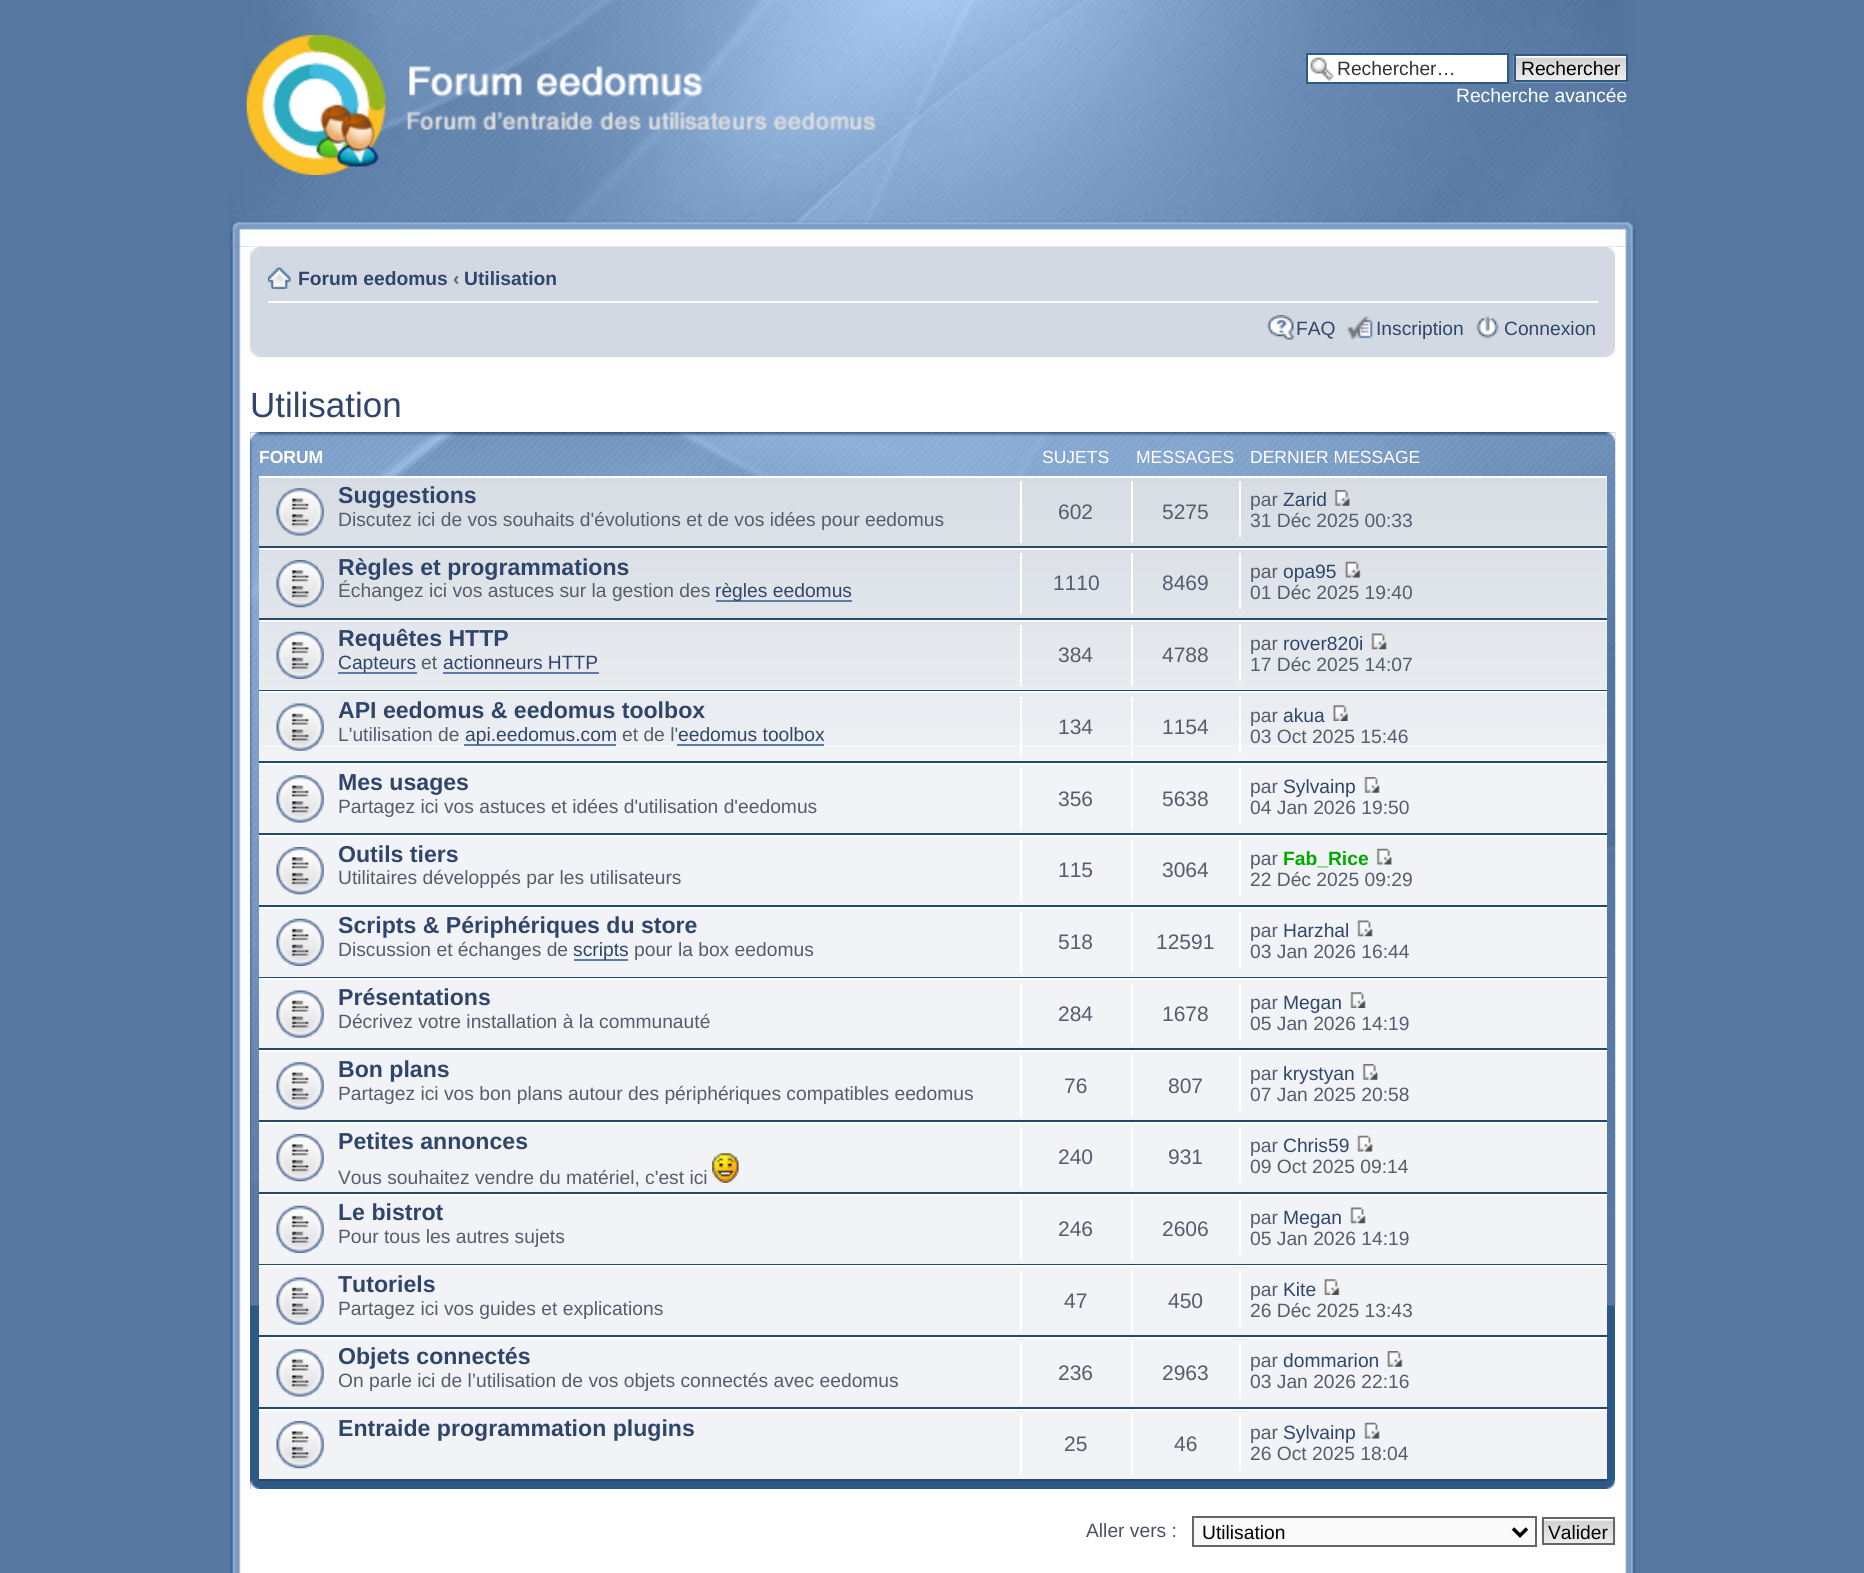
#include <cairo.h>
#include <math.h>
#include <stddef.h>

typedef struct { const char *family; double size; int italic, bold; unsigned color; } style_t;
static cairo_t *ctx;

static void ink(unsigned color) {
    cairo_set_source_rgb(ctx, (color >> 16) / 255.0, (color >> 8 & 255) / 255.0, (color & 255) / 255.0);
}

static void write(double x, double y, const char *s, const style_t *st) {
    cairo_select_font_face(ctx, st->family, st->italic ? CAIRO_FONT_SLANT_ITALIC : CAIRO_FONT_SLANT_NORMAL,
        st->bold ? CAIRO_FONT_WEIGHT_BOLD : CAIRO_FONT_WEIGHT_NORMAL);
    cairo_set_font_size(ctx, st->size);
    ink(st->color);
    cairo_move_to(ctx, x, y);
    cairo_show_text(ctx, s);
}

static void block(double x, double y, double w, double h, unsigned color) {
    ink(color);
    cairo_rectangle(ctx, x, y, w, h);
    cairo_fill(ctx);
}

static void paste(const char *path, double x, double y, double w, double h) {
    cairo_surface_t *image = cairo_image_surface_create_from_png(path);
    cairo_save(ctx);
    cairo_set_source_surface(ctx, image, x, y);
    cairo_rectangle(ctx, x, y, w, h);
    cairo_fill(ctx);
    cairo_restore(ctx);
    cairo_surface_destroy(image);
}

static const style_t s1 = {"Liberation Sans", 19.25, 0, 0, 0x333333};
static const style_t s2 = {"Liberation Sans", 19.25, 0, 0, 0x000000};
static const style_t s3 = {"Liberation Sans", 19.25, 0, 0, 0xffffff};
static const style_t s4 = {"Liberation Sans", 19.25, 0, 1, 0x2f466a};
static const style_t s5 = {"Liberation Sans", 19.25, 0, 1, 0x5f6476};
static const style_t s6 = {"Liberation Sans", 19.25, 0, 0, 0x2f466a};
static const style_t s7 = {"Liberation Sans", 35, 0, 0, 0x2f466a};
static const style_t s8 = {"Liberation Sans", 17.5, 0, 1, 0xffffff};
static const style_t s9 = {"Liberation Sans", 17.5, 0, 0, 0xffffff};
static const style_t s10 = {"Liberation Sans", 23.1, 0, 1, 0x2f466a};
static const style_t s11 = {"Liberation Sans", 19.25, 0, 0, 0x575c6c};
static const style_t s12 = {"Liberation Sans", 21, 0, 0, 0x575c6c};
static const style_t s13 = {"Liberation Sans", 19.25, 0, 1, 0x00aa00};
static const style_t s14 = {"Liberation Sans", 19.25, 0, 0, 0x4b505e};

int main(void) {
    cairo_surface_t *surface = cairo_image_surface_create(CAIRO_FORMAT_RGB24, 1864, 1573);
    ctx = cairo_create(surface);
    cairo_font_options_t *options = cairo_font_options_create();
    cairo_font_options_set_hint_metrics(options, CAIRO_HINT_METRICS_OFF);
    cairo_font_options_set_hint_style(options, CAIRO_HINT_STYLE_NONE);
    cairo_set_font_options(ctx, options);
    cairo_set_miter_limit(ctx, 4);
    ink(0x5677a0);
    cairo_paint(ctx);
    paste("pic1.png", 229, 0, 1407, 247);
    paste("pic2.png", 246, 35, 630, 140);
    block(1308, 55, 199, 27, 0xffffff);
    paste("pic3.png", 1310, 57, 24, 24);
    cairo_rectangle(ctx, 1307, 54, 201, 29);
    ink(0x2d5983);
    cairo_stroke(ctx);
    write(1337, 75, "Rechercher…", &s1);
    paste("pic4.png", 1513, 56, 115, 27);
    cairo_rectangle(ctx, 1515, 55, 112, 26);
    ink(0x2d5983);
    cairo_stroke(ctx);
    write(1521, 75, "Rechercher", &s2);
    write(1456, 102, "Recherche avancée", &s3);
    paste("pic5.png", 229, 246, 1407, 1327);
    block(250, 247, 1365, 110, 0xd2d9e3);
    paste("pic6.png", 250, 246, 9, 10);
    paste("pic7.png", 1606, 246, 9, 10);
    block(268, 301, 1330, 2, 0xffffff);
    paste("pic8.png", 267, 267, 24, 22);
    write(298, 285, "Forum eedomus", &s4);
    write(453, 285, "‹", &s5);
    write(464, 285, "Utilisation", &s4);
    paste("pic9.png", 1267, 315, 28, 25);
    write(1296, 335, "FAQ", &s6);
    paste("pic10.png", 1347, 316, 26, 24);
    write(1376, 335, "Inscription", &s6);
    paste("pic11.png", 1476, 316, 23, 23);
    write(1504, 335, "Connexion", &s6);
    paste("pic12.png", 250, 348, 9, 9);
    paste("pic13.png", 1606, 348, 9, 9);
    write(250, 417, "Utilisation", &s7);
    block(250, 432, 1365, 1057, 0x2d5a84);
    paste("pic14.png", 250, 432, 1366, 874);
    paste("pic15.png", 250, 432, 10, 9);
    paste("pic16.png", 1606, 432, 10, 9);
    write(259, 463, "FORUM", &s8);
    write(1042, 463, "SUJETS", &s9);
    write(1136, 463, "MESSAGES", &s9);
    write(1250, 463, "DERNIER MESSAGE", &s9);
    block(259, 478, 1348, 1001, 0xf1f3f6);
    paste("pic17.png", 259, 478, 1348, 267);
    block(259, 476, 1348, 2, 0xffffff);
    block(259, 546, 1348, 2, 0x24496b);
    paste("pic18.png", 276, 488, 48, 48);
    write(338, 503, "Suggestions", &s10);
    write(338, 526, "Discutez ici de vos souhaits d'évolutions et de vos idées pour eedomus", &s11);
    block(1020, 481, 2, 62, 0xffffff);
    write(1058, 519, "602", &s12);
    block(1131, 481, 2, 62, 0xffffff);
    write(1162, 519, "5275", &s12);
    block(1239, 481, 2, 56, 0xffffff);
    write(1250, 506, "par", &s11);
    write(1283, 506, "Zarid", &s6);
    paste("pic19.png", 1334, 490, 16, 16);
    write(1250, 527, "31 Déc 2025 00:33", &s11);
    block(259, 548, 1348, 2, 0xffffff);
    block(259, 618, 1348, 2, 0x24496b);
    paste("pic20.png", 276, 560, 48, 48);
    write(338, 575, "Règles et programmations", &s10);
    write(338, 597, "Échangez ici vos astuces sur la gestion des", &s11);
    block(716, 600, 136, 2, 0x5e7baa);
    write(715, 597, "règles eedomus", &s6);
    block(1020, 553, 2, 61, 0xffffff);
    write(1053, 590, "1110", &s12);
    block(1131, 553, 2, 61, 0xffffff);
    write(1162, 590, "8469", &s12);
    block(1239, 553, 2, 56, 0xffffff);
    write(1250, 578, "par", &s11);
    write(1283, 578, "opa95", &s6);
    paste("pic21.png", 1345, 561, 16, 17);
    write(1250, 599, "01 Déc 2025 19:40", &s11);
    block(259, 620, 1348, 2, 0xffffff);
    block(259, 690, 1348, 1, 0x24496b);
    paste("pic22.png", 276, 631, 48, 48);
    write(338, 646, "Requêtes HTTP", &s10);
    block(338, 672, 79, 2, 0x5e7baa);
    write(338, 669, "Capteurs", &s6);
    write(421, 669, "et", &s11);
    write(443, 669, "actionneurs HTTP", &s6);
    block(443, 672, 156, 2, 0x5e7baa);
    block(1020, 625, 2, 61, 0xffffff);
    write(1058, 662, "384", &s12);
    block(1131, 625, 2, 61, 0xffffff);
    write(1162, 662, "4788", &s12);
    block(1239, 625, 2, 56, 0xffffff);
    write(1250, 650, "par", &s11);
    write(1283, 650, "rover820i", &s6);
    paste("pic23.png", 1371, 633, 16, 17);
    write(1250, 671, "17 Déc 2025 14:07", &s11);
    block(259, 691, 1348, 2, 0xffffff);
    block(259, 761, 1348, 2, 0x24496b);
    paste("pic24.png", 276, 703, 48, 48);
    write(338, 718, "API eedomus & eedomus toolbox", &s10);
    write(338, 741, "L'utilisation de", &s11);
    block(464, 744, 152, 2, 0x5e7baa);
    write(465, 741, "api.eedomus.com", &s6);
    write(622, 741, "et de l'", &s11);
    write(678, 741, "eedomus toolbox", &s6);
    block(677, 744, 147, 2, 0x5e7baa);
    block(1020, 697, 2, 61, 0xffffff);
    write(1058, 734, "134", &s12);
    block(1131, 697, 2, 61, 0xffffff);
    write(1162, 734, "1154", &s12);
    block(1239, 697, 2, 56, 0xffffff);
    write(1250, 722, "par", &s11);
    write(1283, 722, "akua", &s6);
    paste("pic25.png", 1333, 705, 15, 16);
    write(1250, 743, "03 Oct 2025 15:46", &s11);
    block(259, 763, 1348, 2, 0xffffff);
    block(259, 833, 1348, 2, 0x24496b);
    paste("pic26.png", 276, 775, 48, 48);
    write(338, 790, "Mes usages", &s10);
    write(338, 813, "Partagez ici vos astuces et idées d'utilisation d'eedomus", &s11);
    block(1020, 768, 2, 62, 0xffffff);
    write(1058, 806, "356", &s12);
    block(1131, 768, 2, 62, 0xffffff);
    write(1162, 806, "5638", &s12);
    block(1239, 768, 2, 56, 0xffffff);
    write(1250, 793, "par", &s11);
    write(1283, 793, "Sylvainp", &s6);
    paste("pic27.png", 1364, 777, 16, 16);
    write(1250, 814, "04 Jan 2026 19:50", &s11);
    block(259, 835, 1348, 2, 0xffffff);
    block(259, 905, 1348, 2, 0x24496b);
    paste("pic28.png", 276, 847, 48, 48);
    write(338, 862, "Outils tiers", &s10);
    write(338, 884, "Utilitaires développés par les utilisateurs", &s11);
    block(1020, 840, 2, 61, 0xffffff);
    write(1058, 877, "115", &s12);
    block(1131, 840, 2, 61, 0xffffff);
    write(1162, 877, "3064", &s12);
    block(1239, 840, 2, 56, 0xffffff);
    write(1250, 865, "par", &s11);
    write(1283, 865, "Fab_Rice", &s13);
    paste("pic29.png", 1376, 848, 16, 17);
    write(1250, 886, "22 Déc 2025 09:29", &s11);
    block(259, 907, 1348, 2, 0xffffff);
    block(259, 977, 1348, 1, 0x24496b);
    paste("pic30.png", 276, 918, 48, 48);
    write(338, 933, "Scripts & Périphériques du store", &s10);
    write(338, 956, "Discussion et échanges de", &s11);
    block(574, 959, 54, 2, 0x5e7baa);
    write(573, 956, "scripts", &s6);
    write(634, 956, "pour la box eedomus", &s11);
    block(1020, 912, 2, 61, 0xffffff);
    write(1058, 949, "518", &s12);
    block(1131, 912, 2, 61, 0xffffff);
    write(1156, 949, "12591", &s12);
    block(1239, 912, 2, 56, 0xffffff);
    write(1250, 937, "par", &s11);
    write(1283, 937, "Harzhal", &s6);
    paste("pic31.png", 1357, 920, 16, 17);
    write(1250, 958, "03 Jan 2026 16:44", &s11);
    block(259, 978, 1348, 2, 0xffffff);
    block(259, 1048, 1348, 2, 0x24496b);
    paste("pic32.png", 276, 990, 48, 48);
    write(338, 1005, "Présentations", &s10);
    write(338, 1028, "Décrivez votre installation à la communauté", &s11);
    block(1020, 984, 2, 61, 0xffffff);
    write(1058, 1021, "284", &s12);
    block(1131, 984, 2, 61, 0xffffff);
    write(1162, 1021, "1678", &s12);
    block(1239, 984, 2, 56, 0xffffff);
    write(1250, 1009, "par", &s11);
    write(1283, 1009, "Megan", &s6);
    paste("pic33.png", 1350, 992, 16, 16);
    write(1250, 1030, "05 Jan 2026 14:19", &s11);
    block(259, 1050, 1348, 2, 0xffffff);
    block(259, 1120, 1348, 2, 0x24496b);
    paste("pic26.png", 276, 1062, 48, 48);
    write(338, 1077, "Bon plans", &s10);
    write(338, 1100, "Partagez ici vos bon plans autour des périphériques compatibles eedomus", &s11);
    block(1020, 1055, 2, 62, 0xffffff);
    write(1064, 1093, "76", &s12);
    block(1131, 1055, 2, 62, 0xffffff);
    write(1168, 1093, "807", &s12);
    block(1239, 1055, 2, 56, 0xffffff);
    write(1250, 1080, "par", &s11);
    write(1283, 1080, "krystyan", &s6);
    paste("pic34.png", 1362, 1064, 16, 16);
    write(1250, 1101, "07 Jan 2025 20:58", &s11);
    block(259, 1122, 1348, 2, 0xffffff);
    block(259, 1192, 1348, 2, 0x24496b);
    paste("pic28.png", 276, 1134, 48, 48);
    write(338, 1149, "Petites annonces", &s10);
    write(338, 1184, "Vous souhaitez vendre du matériel, c'est ici", &s11);
    paste("pic35.png", 712, 1153, 27, 30);
    block(1020, 1127, 2, 61, 0xffffff);
    write(1058, 1164, "240", &s12);
    block(1131, 1127, 2, 61, 0xffffff);
    write(1168, 1164, "931", &s12);
    block(1239, 1127, 2, 56, 0xffffff);
    write(1250, 1152, "par", &s11);
    write(1283, 1152, "Chris59", &s6);
    paste("pic36.png", 1357, 1135, 16, 17);
    write(1250, 1173, "09 Oct 2025 09:14", &s11);
    block(259, 1194, 1348, 2, 0xffffff);
    block(259, 1264, 1348, 1, 0x24496b);
    paste("pic30.png", 276, 1205, 48, 48);
    write(338, 1220, "Le bistrot", &s10);
    write(338, 1243, "Pour tous les autres sujets", &s11);
    block(1020, 1199, 2, 61, 0xffffff);
    write(1058, 1236, "246", &s12);
    block(1131, 1199, 2, 61, 0xffffff);
    write(1162, 1236, "2606", &s12);
    block(1239, 1199, 2, 56, 0xffffff);
    write(1250, 1224, "par", &s11);
    write(1283, 1224, "Megan", &s6);
    paste("pic31.png", 1350, 1207, 16, 17);
    write(1250, 1245, "05 Jan 2026 14:19", &s11);
    block(259, 1265, 1348, 2, 0xffffff);
    block(259, 1335, 1348, 2, 0x24496b);
    paste("pic32.png", 276, 1277, 48, 48);
    write(338, 1292, "Tutoriels", &s10);
    write(338, 1315, "Partagez ici vos guides et explications", &s11);
    block(1020, 1271, 2, 61, 0xffffff);
    write(1064, 1308, "47", &s12);
    block(1131, 1271, 2, 61, 0xffffff);
    write(1168, 1308, "450", &s12);
    block(1239, 1271, 2, 56, 0xffffff);
    write(1250, 1296, "par", &s11);
    write(1283, 1296, "Kite", &s6);
    paste("pic37.png", 1324, 1279, 16, 16);
    write(1250, 1317, "26 Déc 2025 13:43", &s11);
    block(259, 1337, 1348, 2, 0xffffff);
    block(259, 1407, 1348, 2, 0x24496b);
    paste("pic26.png", 276, 1349, 48, 48);
    write(338, 1364, "Objets connectés", &s10);
    write(338, 1387, "On parle ici de l’utilisation de vos objets connectés avec eedomus", &s11);
    block(1020, 1342, 2, 62, 0xffffff);
    write(1058, 1380, "236", &s12);
    block(1131, 1342, 2, 62, 0xffffff);
    write(1162, 1380, "2963", &s12);
    block(1239, 1342, 2, 56, 0xffffff);
    write(1250, 1367, "par", &s11);
    write(1283, 1367, "dommarion", &s6);
    paste("pic38.png", 1387, 1351, 16, 16);
    write(1250, 1388, "03 Jan 2026 22:16", &s11);
    block(259, 1409, 1348, 2, 0xffffff);
    block(259, 1479, 1348, 2, 0x24496b);
    paste("pic28.png", 276, 1421, 48, 48);
    write(338, 1436, "Entraide programmation plugins", &s10);
    block(1020, 1414, 2, 61, 0xffffff);
    write(1064, 1451, "25", &s12);
    block(1131, 1414, 2, 61, 0xffffff);
    write(1174, 1451, "46", &s12);
    block(1239, 1414, 2, 56, 0xffffff);
    write(1250, 1439, "par", &s11);
    write(1283, 1439, "Sylvainp", &s6);
    paste("pic36.png", 1364, 1422, 16, 17);
    write(1250, 1460, "26 Oct 2025 18:04", &s11);
    paste("pic39.png", 250, 1480, 10, 9);
    paste("pic40.png", 1606, 1480, 9, 9);
    write(1086, 1537, "Aller vers :", &s14);
    ink(0xfafafa);
    cairo_rectangle(ctx, 1193, 1517, 343, 29);
    cairo_fill_preserve(ctx);
    ink(0x666666);
    cairo_stroke(ctx);
    cairo_new_path(ctx);
    cairo_move_to(ctx, 1513, 1528.5);
    cairo_line_to(ctx, 1520, 1535.5);
    cairo_line_to(ctx, 1527, 1528.5);
    ink(0x000000);
    cairo_set_line_width(ctx, 3.5);
    cairo_stroke(ctx);
    write(1202, 1539, "Utilisation", &s2);
    paste("pic41.png", 1541, 1519, 75, 27);
    cairo_rectangle(ctx, 1543, 1518, 71, 26);
    ink(0x666666);
    cairo_set_line_width(ctx, 2);
    cairo_stroke(ctx);
    write(1548, 1539, "Valider", &s2);
    cairo_surface_write_to_png(surface, "screenshot.png");
    cairo_font_options_destroy(options);
    cairo_destroy(ctx);
    cairo_surface_destroy(surface);
    return 0;
}
